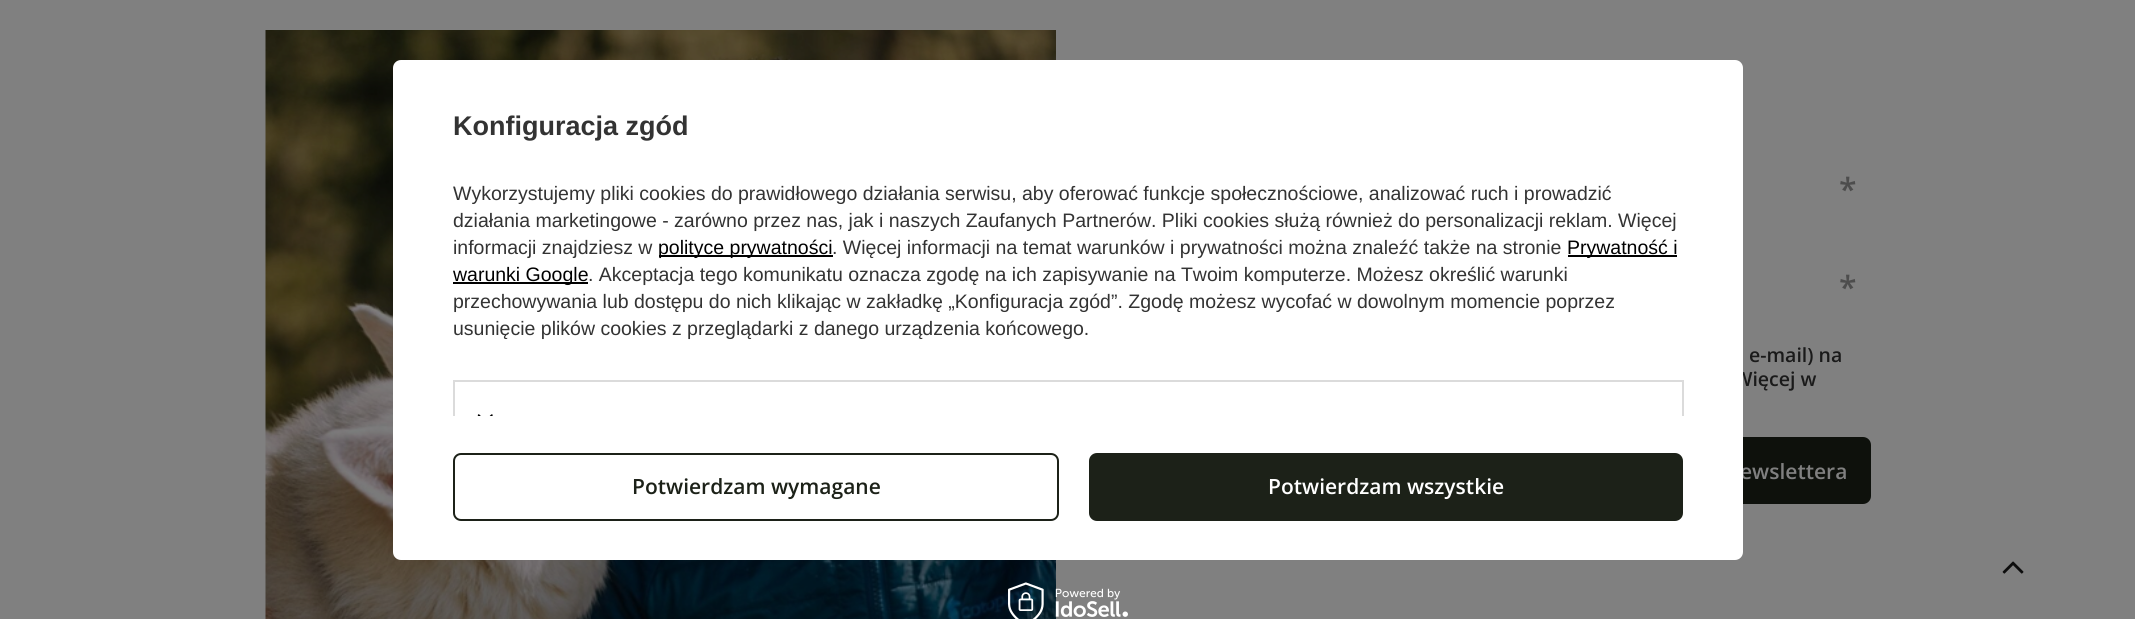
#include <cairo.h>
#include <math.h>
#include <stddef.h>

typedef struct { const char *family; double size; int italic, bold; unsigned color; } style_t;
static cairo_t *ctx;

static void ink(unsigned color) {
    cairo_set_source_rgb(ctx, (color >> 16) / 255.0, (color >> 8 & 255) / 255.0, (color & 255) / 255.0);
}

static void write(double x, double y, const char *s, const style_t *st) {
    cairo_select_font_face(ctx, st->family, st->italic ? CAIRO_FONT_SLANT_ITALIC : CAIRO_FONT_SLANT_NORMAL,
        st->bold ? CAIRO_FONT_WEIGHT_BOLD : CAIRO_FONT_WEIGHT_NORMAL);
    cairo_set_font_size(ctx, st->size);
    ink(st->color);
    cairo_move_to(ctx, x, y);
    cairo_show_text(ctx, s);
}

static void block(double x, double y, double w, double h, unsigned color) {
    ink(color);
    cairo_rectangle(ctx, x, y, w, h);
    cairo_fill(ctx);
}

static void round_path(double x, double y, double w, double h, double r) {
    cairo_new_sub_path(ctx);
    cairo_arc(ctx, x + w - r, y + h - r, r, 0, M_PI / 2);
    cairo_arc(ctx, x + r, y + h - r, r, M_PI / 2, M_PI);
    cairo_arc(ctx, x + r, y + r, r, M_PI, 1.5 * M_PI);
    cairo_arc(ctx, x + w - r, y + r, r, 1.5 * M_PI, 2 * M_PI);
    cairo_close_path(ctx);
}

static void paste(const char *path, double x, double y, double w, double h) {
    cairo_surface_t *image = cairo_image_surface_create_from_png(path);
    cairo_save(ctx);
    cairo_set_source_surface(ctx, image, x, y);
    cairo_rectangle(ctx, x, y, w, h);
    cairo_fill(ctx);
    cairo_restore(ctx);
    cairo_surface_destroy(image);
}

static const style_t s1 = {"Open Sans SemiBold", 19.5, 0, 0, 0x1a1a1a};
static const style_t s2 = {"Open Sans SemiBold", 21, 0, 0, 0x808080};
static const style_t s3 = {"Liberation Sans", 27, 0, 1, 0x333333};
static const style_t s4 = {"Liberation Sans", 19.5, 0, 0, 0x333333};
static const style_t s5 = {"Liberation Sans", 19.5, 0, 0, 0x000000};
static const style_t s6 = {"Open Sans SemiBold", 21, 0, 0, 0x1c2118};
static const style_t s7 = {"Open Sans SemiBold", 21, 0, 0, 0xffffff};
static const style_t s8 = {"Open Sans SemiBold", 32, 0, 0, 0x4d4d4d};

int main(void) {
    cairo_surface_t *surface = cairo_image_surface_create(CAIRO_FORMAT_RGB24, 2135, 619);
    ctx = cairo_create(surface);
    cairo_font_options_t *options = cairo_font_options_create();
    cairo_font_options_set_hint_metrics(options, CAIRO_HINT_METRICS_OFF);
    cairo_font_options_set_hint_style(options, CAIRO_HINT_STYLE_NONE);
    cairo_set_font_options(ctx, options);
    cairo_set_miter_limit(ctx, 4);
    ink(0x808080);
    cairo_paint(ctx);
    paste("pic3.png", 265, 30, 791, 589);
    write(1734, 386, "Więcej w", &s1);
    ink(0x0e110c);
    round_path(1572, 438, 298, 65, 7);
    cairo_fill_preserve(ctx);
    cairo_stroke(ctx);
    write(1740, 479, "ewslettera", &s2);
    ink(0xffffff);
    round_path(393, 60, 1350, 500, 8);
    cairo_fill(ctx);
    write(453, 135, "Konfiguracja zgód", &s3);
    write(453, 200, "Wykorzystujemy pliki cookies do prawidłowego działania serwisu, aby oferować funkcje społecznościowe, analizować ruch i prowadzić", &s4);
    write(453, 227, "działania marketingowe - zarówno przez nas, jak i naszych Zaufanych Partnerów. Pliki cookies służą również do personalizacji reklam. Więcej", &s4);
    write(453, 254, "informacji znajdziesz w", &s4);
    block(659, 255, 174, 2, 0x000000);
    write(658, 254, "polityce prywatności", &s5);
    write(832, 254, ". Więcej informacji na temat warunków i prywatności można znaleźć także na stronie", &s4);
    block(1568, 255, 109, 2, 0x000000);
    write(1567, 254, "Prywatność i", &s5);
    block(453, 282, 135, 2, 0x000000);
    write(453, 281, "warunki Google", &s5);
    write(588, 281, ". Akceptacja tego komunikatu oznacza zgodę na ich zapisywanie na Twoim komputerze. Możesz określić warunki", &s4);
    write(453, 308, "przechowywania lub dostępu do nich klikając w zakładkę „Konfiguracja zgód”. Zgodę możesz wycofać w dowolnym momencie poprzez", &s4);
    write(453, 335, "usunięcie plików cookies z przeglądarki z danego urządzenia końcowego.", &s4);
    block(453, 380, 1230, 2, 0xdbdbdb);
    block(1682, 380, 2, 36, 0xdbdbdb);
    block(453, 380, 2, 36, 0xdbdbdb);
    paste("pic1.png", 477, 414, 16, 2);
    round_path(454, 454, 604, 66, 7);
    ink(0x1c2118);
    cairo_stroke(ctx);
    write(632, 494, "Potwierdzam wymagane", &s6);
    round_path(1090, 454, 592, 66, 7);
    cairo_fill_preserve(ctx);
    cairo_stroke(ctx);
    write(1268, 494, "Potwierdzam wszystkie", &s7);
    paste("pic2.png", 1008, 582, 120, 37);
    write(1839, 201, "*", &s8);
    write(1839, 299, "*", &s8);
    write(1749, 362, "e-mail) na", &s1);
    paste("pic4.png", 2002, 561, 22, 13);
    cairo_surface_write_to_png(surface, "screenshot.png");
    cairo_font_options_destroy(options);
    cairo_destroy(ctx);
    cairo_surface_destroy(surface);
    return 0;
}
